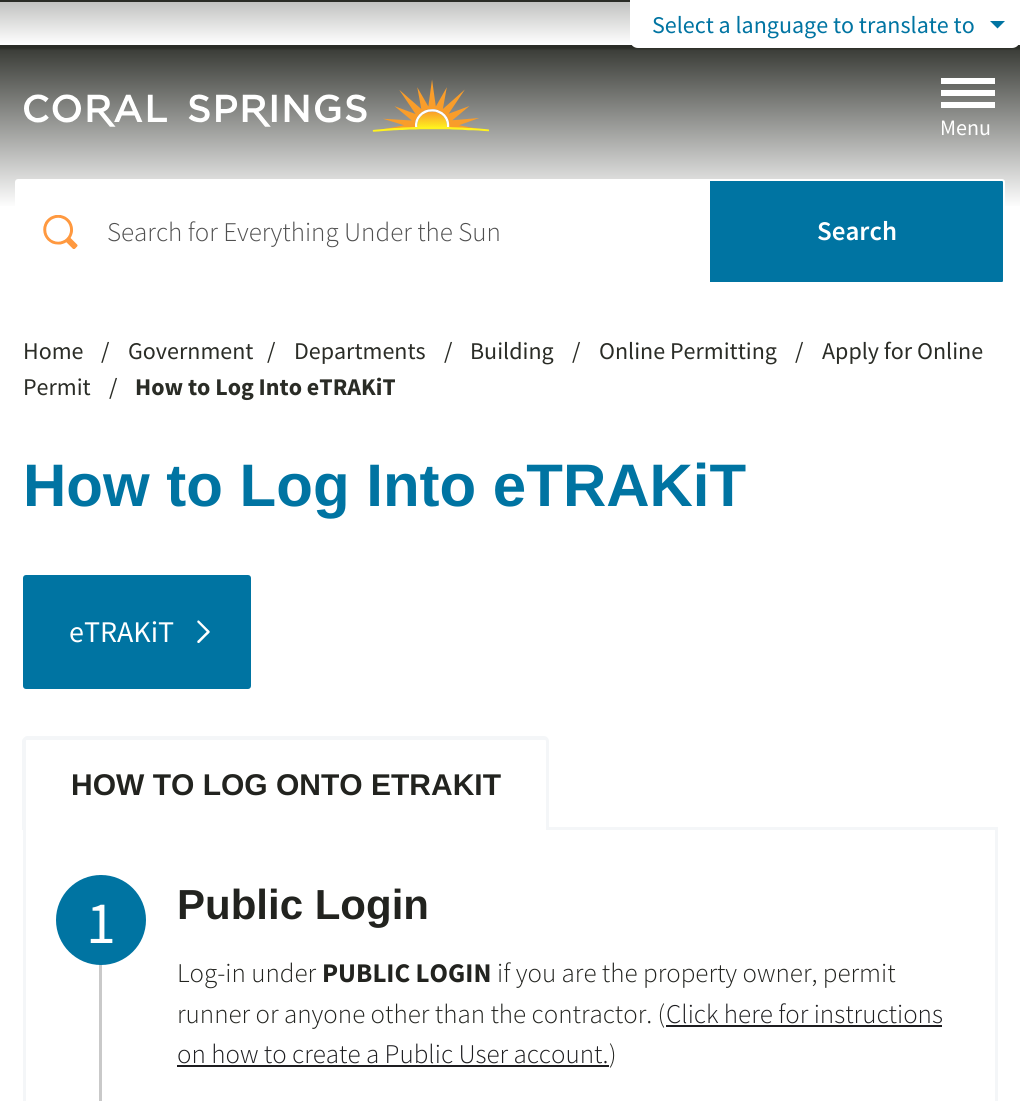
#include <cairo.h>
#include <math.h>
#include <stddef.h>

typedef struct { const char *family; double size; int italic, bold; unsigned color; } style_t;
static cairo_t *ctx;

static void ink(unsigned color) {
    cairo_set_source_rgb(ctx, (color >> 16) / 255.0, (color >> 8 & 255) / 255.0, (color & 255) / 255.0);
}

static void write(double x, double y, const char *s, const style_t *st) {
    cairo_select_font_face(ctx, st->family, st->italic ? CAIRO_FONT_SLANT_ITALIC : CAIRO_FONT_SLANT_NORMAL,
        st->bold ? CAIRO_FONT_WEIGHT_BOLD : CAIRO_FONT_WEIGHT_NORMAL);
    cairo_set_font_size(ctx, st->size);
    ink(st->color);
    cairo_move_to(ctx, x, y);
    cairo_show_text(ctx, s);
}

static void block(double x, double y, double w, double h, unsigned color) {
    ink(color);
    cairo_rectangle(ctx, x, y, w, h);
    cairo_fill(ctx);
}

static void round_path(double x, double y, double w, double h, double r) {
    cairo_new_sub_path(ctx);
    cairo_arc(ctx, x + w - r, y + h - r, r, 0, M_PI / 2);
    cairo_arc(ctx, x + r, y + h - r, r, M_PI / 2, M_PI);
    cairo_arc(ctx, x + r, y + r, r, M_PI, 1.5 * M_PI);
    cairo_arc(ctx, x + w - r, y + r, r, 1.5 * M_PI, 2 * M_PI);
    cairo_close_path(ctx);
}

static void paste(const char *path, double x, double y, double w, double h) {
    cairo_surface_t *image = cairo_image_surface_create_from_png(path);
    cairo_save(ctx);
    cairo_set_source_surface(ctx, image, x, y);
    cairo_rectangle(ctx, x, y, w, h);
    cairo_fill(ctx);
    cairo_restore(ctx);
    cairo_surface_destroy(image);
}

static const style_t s1 = {"Source Sans Pro", 24, 0, 0, 0x0074a2};
static const style_t s2 = {"Source Sans Pro", 22, 0, 0, 0xffffff};
static const style_t s3 = {"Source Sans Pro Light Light", 27, 0, 0, 0x505050};
static const style_t s4 = {"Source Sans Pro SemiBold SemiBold", 27, 0, 0, 0xffffff};
static const style_t s5 = {"Source Sans Pro", 24, 0, 0, 0x2a2c26};
static const style_t s6 = {"Source Sans Pro", 24, 0, 1, 0x2a2c26};
static const style_t s7 = {"Liberation Sans", 60, 0, 1, 0x0074a2};
static const style_t s8 = {"Source Sans Pro", 30, 0, 0, 0xffffff};
static const style_t s9 = {"Liberation Sans", 30, 0, 1, 0x22231f};
static const style_t s10 = {"Source Sans Pro", 60, 0, 0, 0xffffff};
static const style_t s11 = {"Liberation Sans", 42, 0, 1, 0x22231f};
static const style_t s12 = {"Source Sans Pro Light Light", 27, 0, 0, 0x22231f};
static const style_t s13 = {"Source Sans Pro", 27, 0, 1, 0x22231f};
static const style_t s14 = {"Source Sans Pro Light Light", 27, 0, 0, 0x1d1d20};

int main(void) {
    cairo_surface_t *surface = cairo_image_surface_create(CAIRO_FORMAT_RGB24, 1020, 1101);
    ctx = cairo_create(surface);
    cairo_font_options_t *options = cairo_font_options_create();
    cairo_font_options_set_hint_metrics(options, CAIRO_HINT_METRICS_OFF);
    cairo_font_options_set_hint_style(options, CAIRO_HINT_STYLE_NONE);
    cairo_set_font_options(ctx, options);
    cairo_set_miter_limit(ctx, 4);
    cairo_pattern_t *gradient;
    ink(0xffffff);
    cairo_paint(ctx);
    block(0, 0, 1020, 48, 0x2a2c26);
    gradient = cairo_pattern_create_linear(510, 45, 510, -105);
    cairo_pattern_add_color_stop_rgba(gradient, 0, 1, 1, 1, 1);
    cairo_pattern_add_color_stop_rgba(gradient, 1, 0.165, 0.173, 0.149, 1);
    cairo_set_source(ctx, gradient);
    cairo_pattern_destroy(gradient);
    cairo_rectangle(ctx, 0, 2, 1020, 43);
    cairo_fill(ctx);
    ink(0xffffff);
    cairo_new_path(ctx);
    cairo_move_to(ctx, 630, 0);
    cairo_line_to(ctx, 1020, 0);
    cairo_line_to(ctx, 1020, 40);
    cairo_curve_to(ctx, 1020, 44.5, 1016.5, 48, 1012, 48);
    cairo_line_to(ctx, 638, 48);
    cairo_curve_to(ctx, 633.5, 48, 630, 44.5, 630, 40);
    cairo_close_path(ctx);
    cairo_fill(ctx);
    write(652, 33, "Select a language to translate to", &s1);
    cairo_new_path(ctx);
    cairo_move_to(ctx, 990, 21);
    cairo_line_to(ctx, 1005, 21);
    cairo_line_to(ctx, 997.5, 28.5);
    cairo_close_path(ctx);
    cairo_fill(ctx);
    gradient = cairo_pattern_create_linear(510, 48, 510, 314);
    cairo_pattern_add_color_stop_rgba(gradient, 0, 0.165, 0.173, 0.149, 1);
    cairo_pattern_add_color_stop_rgba(gradient, 0.01, 0.239, 0.247, 0.227, 1);
    cairo_pattern_add_color_stop_rgba(gradient, 0.6, 1, 1, 1, 1);
    cairo_set_source(ctx, gradient);
    cairo_pattern_destroy(gradient);
    cairo_rectangle(ctx, 0, 48, 1020, 158);
    cairo_fill(ctx);
    paste("pic1.png", 24, 79, 465, 53);
    block(941, 90, 54, 6, 0xffffff);
    block(941, 78, 54, 6, 0xffffff);
    block(941, 102, 54, 6, 0xffffff);
    write(940, 135, "Menu", &s2);
    cairo_new_path(ctx);
    cairo_move_to(ctx, 18, 180);
    cairo_line_to(ctx, 707, 180);
    cairo_line_to(ctx, 707, 283);
    cairo_line_to(ctx, 18, 283);
    cairo_curve_to(ctx, 17, 283, 16, 282, 16, 281);
    cairo_line_to(ctx, 16, 182);
    cairo_curve_to(ctx, 16, 181, 17, 180, 18, 180);
    cairo_close_path(ctx);
    cairo_fill_preserve(ctx);
    cairo_stroke(ctx);
    paste("pic2.png", 43, 215, 35, 34);
    write(107, 241, "Search for Everything Under the Sun", &s3);
    ink(0x0074a2);
    cairo_new_path(ctx);
    cairo_move_to(ctx, 709, 180);
    cairo_line_to(ctx, 1002, 180);
    cairo_curve_to(ctx, 1003, 180, 1004, 181, 1004, 182);
    cairo_line_to(ctx, 1004, 281);
    cairo_curve_to(ctx, 1004, 282, 1003, 283, 1002, 283);
    cairo_line_to(ctx, 709, 283);
    cairo_close_path(ctx);
    cairo_fill_preserve(ctx);
    ink(0xffffff);
    cairo_stroke(ctx);
    write(817, 240, "Search", &s4);
    write(23, 359, "Home", &s5);
    write(101, 359, "/", &s5);
    write(128, 359, "Government", &s5);
    write(267, 359, "/", &s5);
    write(294, 359, "Departments", &s5);
    write(444, 359, "/", &s5);
    write(470, 359, "Building", &s5);
    write(572, 359, "/", &s5);
    write(599, 359, "Online Permitting", &s5);
    write(795, 359, "/", &s5);
    write(822, 359, "Apply for Online", &s5);
    write(23, 395, "Permit", &s5);
    write(109, 395, "/", &s5);
    write(135, 395, "How to Log Into eTRAKiT", &s6);
    write(23, 506, "How to Log Into eTRAKiT", &s7);
    round_path(23, 575, 228, 114, 3);
    cairo_fill(ctx);
    write(69, 642, "eTRAKiT", &s8);
    paste("pic3.png", 197, 620, 13, 23);
    cairo_rectangle(ctx, 24.5, 828.5, 972, 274);
    ink(0xf4f6f8);
    cairo_set_line_width(ctx, 3);
    cairo_stroke(ctx);
    ink(0xffffff);
    cairo_new_path(ctx);
    cairo_move_to(ctx, 28, 737);
    cairo_line_to(ctx, 544, 737);
    cairo_curve_to(ctx, 547, 737, 549, 739, 549, 742);
    cairo_line_to(ctx, 549, 830);
    cairo_line_to(ctx, 23, 830);
    cairo_line_to(ctx, 23, 742);
    cairo_curve_to(ctx, 23, 739, 25, 737, 28, 737);
    cairo_close_path(ctx);
    cairo_fill(ctx);
    ink(0xf4f6f8);
    cairo_set_fill_rule(ctx, CAIRO_FILL_RULE_EVEN_ODD);
    cairo_new_path(ctx);
    cairo_move_to(ctx, 27, 736);
    cairo_line_to(ctx, 544, 736);
    cairo_curve_to(ctx, 547, 736, 549, 739, 549, 741);
    cairo_line_to(ctx, 549, 830);
    cairo_line_to(ctx, 22, 830);
    cairo_line_to(ctx, 22, 741);
    cairo_curve_to(ctx, 22, 739, 25, 736, 27, 736);
    cairo_close_path(ctx);
    cairo_move_to(ctx, 27, 740);
    cairo_line_to(ctx, 544, 740);
    cairo_curve_to(ctx, 545, 740, 546, 740, 546, 741);
    cairo_line_to(ctx, 546, 830);
    cairo_line_to(ctx, 26, 830);
    cairo_line_to(ctx, 26, 741);
    cairo_curve_to(ctx, 26, 740, 26, 740, 27, 740);
    cairo_close_path(ctx);
    cairo_fill(ctx);
    write(71, 795, "HOW TO LOG ONTO ETRAKIT", &s9);
    block(99, 875, 3, 226, 0xc9c9c9);
    ink(0x0074a2);
    cairo_new_path(ctx);
    cairo_arc(ctx, 101, 920, 43.5, 0, 2 * M_PI);
    cairo_fill_preserve(ctx);
    cairo_stroke(ctx);
    write(86, 943, "1", &s10);
    write(177, 919, "Public Login", &s11);
    write(177, 982, "Log-in under", &s12);
    write(322, 982, "PUBLIC LOGIN", &s13);
    write(497, 982, "if you are the property owner, permit", &s12);
    write(177, 1023, "runner or anyone other than the contractor. (", &s12);
    write(666, 1023, "Click here for instructions", &s14);
    block(666, 1025, 276, 2, 0x1d1d20);
    write(177, 1063, "on how to create a Public User account.", &s14);
    block(177, 1065, 432, 2, 0x1d1d20);
    write(609, 1063, ")", &s12);
    cairo_surface_write_to_png(surface, "screenshot.png");
    cairo_font_options_destroy(options);
    cairo_destroy(ctx);
    cairo_surface_destroy(surface);
    return 0;
}
